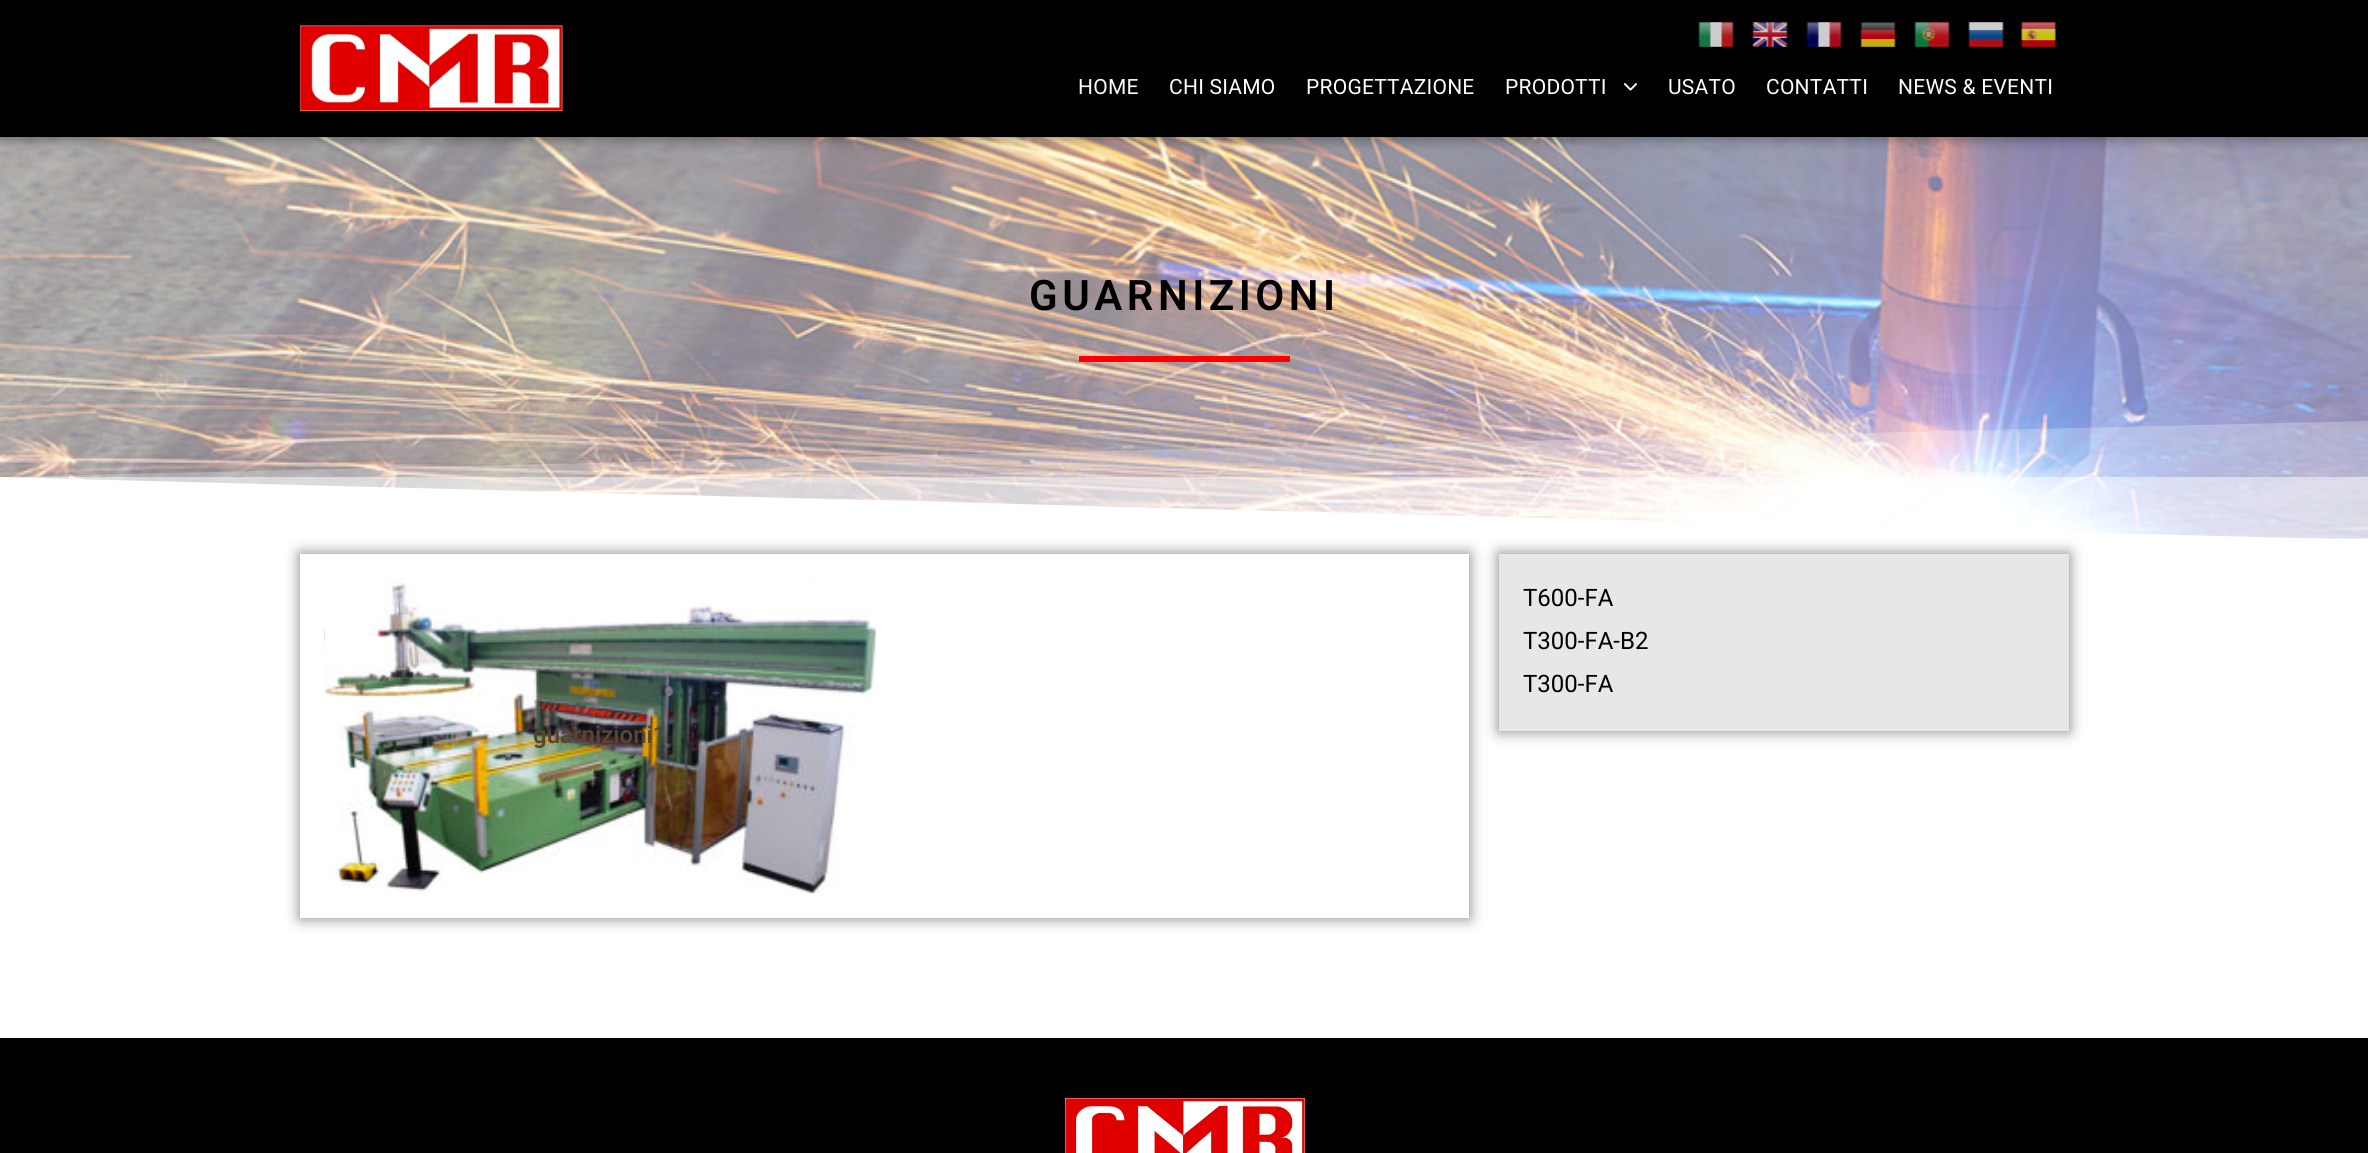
#include <cairo.h>
#include <math.h>
#include <stddef.h>

typedef struct { const char *family; double size; int italic, bold; unsigned color; } style_t;
static cairo_t *ctx;

static void ink(unsigned color) {
    cairo_set_source_rgb(ctx, (color >> 16) / 255.0, (color >> 8 & 255) / 255.0, (color & 255) / 255.0);
}

static void write(double x, double y, const char *s, const style_t *st) {
    cairo_select_font_face(ctx, st->family, st->italic ? CAIRO_FONT_SLANT_ITALIC : CAIRO_FONT_SLANT_NORMAL,
        st->bold ? CAIRO_FONT_WEIGHT_BOLD : CAIRO_FONT_WEIGHT_NORMAL);
    cairo_set_font_size(ctx, st->size);
    ink(st->color);
    cairo_move_to(ctx, x, y);
    cairo_show_text(ctx, s);
}

static void write_spaced(double x, double y, const char *s, double letter, double word) {
    cairo_move_to(ctx, x, y);
    while (*s) {
        char ch[5] = {0};
        int n = 0;
        do ch[n++] = *s++; while ((*s & 0xC0) == 0x80);
        cairo_show_text(ctx, ch);
        cairo_rel_move_to(ctx, letter + word * (*ch == ' '), 0);
    }
}

static void block(double x, double y, double w, double h, unsigned color) {
    ink(color);
    cairo_rectangle(ctx, x, y, w, h);
    cairo_fill(ctx);
}

static void round_path(double x, double y, double w, double h, double r) {
    cairo_new_sub_path(ctx);
    cairo_arc(ctx, x + w - r, y + h - r, r, 0, M_PI / 2);
    cairo_arc(ctx, x + r, y + h - r, r, M_PI / 2, M_PI);
    cairo_arc(ctx, x + r, y + r, r, M_PI, 1.5 * M_PI);
    cairo_arc(ctx, x + w - r, y + r, r, 1.5 * M_PI, 2 * M_PI);
    cairo_close_path(ctx);
}

static void blur_box(double x, double y, double w, double h, double r, double blur, double alpha) {
    cairo_push_group_with_content(ctx, CAIRO_CONTENT_ALPHA);
    cairo_set_operator(ctx, CAIRO_OPERATOR_SOURCE);
    for (int i = 15; i >= -15 && fmin(w, h) + blur * i / 3 > 0; i -= 2) {
        double e = blur * i / 6;
        cairo_set_source_rgba(ctx, 0, 0, 0, alpha * erfc((i - 1) / 8.5) / 2);
        round_path(x - e, y - e, w + 2 * e, h + 2 * e, fmax(0, fmin(r + e + blur * .6, fmin(w, h) / 2 + e)));
        cairo_fill(ctx);
    }
    cairo_pattern_t *soft = cairo_pop_group(ctx);
    cairo_mask(ctx, soft);
    cairo_pattern_destroy(soft);
}

static void paste(const char *path, double x, double y, double w, double h) {
    cairo_surface_t *image = cairo_image_surface_create_from_png(path);
    cairo_save(ctx);
    cairo_set_source_surface(ctx, image, x, y);
    cairo_rectangle(ctx, x, y, w, h);
    cairo_fill(ctx);
    cairo_restore(ctx);
    cairo_surface_destroy(image);
}

static const style_t s1 = {"Roboto", 24, 0, 0, 0x000000};
static const style_t s2 = {"Roboto SemiBold", 24, 0, 0, 0x544734};

int main(void) {
    cairo_surface_t *surface = cairo_image_surface_create(CAIRO_FORMAT_RGB24, 2368, 1153);
    ctx = cairo_create(surface);
    cairo_font_options_t *options = cairo_font_options_create();
    cairo_font_options_set_hint_metrics(options, CAIRO_HINT_METRICS_OFF);
    cairo_font_options_set_hint_style(options, CAIRO_HINT_STYLE_NONE);
    cairo_set_font_options(ctx, options);
    cairo_set_miter_limit(ctx, 4);
    ink(0xffffff);
    cairo_paint(ctx);
    paste("pic10.png", 0, 137, 2368, 402);
    ink(0x000000);
    blur_box(0, 0, 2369, 137, 0, 7.5, 0.5);
    block(0, 0, 2368, 137, 0x000000);
    paste("pic1.png", 300, 25, 263, 87);
    paste("pic2.png", 1698, 22, 36, 25);
    paste("pic3.png", 1752, 22, 36, 25);
    paste("pic4.png", 1806, 22, 36, 25);
    paste("pic5.png", 1860, 22, 36, 25);
    paste("pic6.png", 1914, 22, 36, 25);
    paste("pic7.png", 1968, 22, 36, 25);
    paste("pic8.png", 2021, 22, 35, 25);
    cairo_select_font_face(ctx, "Roboto", CAIRO_FONT_SLANT_NORMAL, CAIRO_FONT_WEIGHT_NORMAL);
    cairo_set_font_size(ctx, 21);
    ink(0xffffff);
    write_spaced(1078, 94, "HOME", 0.25, 0);
    write_spaced(1169, 94, "CHI SIAMO", 0.25, 0);
    write_spaced(1306, 94, "PROGETTAZIONE", 0.25, 0);
    write_spaced(1505, 94, "PRODOTTI", 0.25, 0);
    paste("pic9.png", 1624, 83, 13, 8);
    write_spaced(1668, 94, "USATO", 0.25, 0);
    write_spaced(1766, 94, "CONTATTI", 0.25, 0);
    write_spaced(1898, 94, "NEWS & EVENTI", 0.25, 0);
    cairo_select_font_face(ctx, "Roboto SemiBold", CAIRO_FONT_SLANT_NORMAL, CAIRO_FONT_WEIGHT_NORMAL);
    cairo_set_font_size(ctx, 42);
    ink(0x000000);
    write_spaced(1029, 310, "GUARNIZIONI", 4.5, 0);
    block(1079, 356, 211, 6, 0xfb0000);
    ink(0xffffff);
    cairo_new_path(ctx);
    cairo_move_to(ctx, 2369, 540);
    cairo_line_to(ctx, -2, 540);
    cairo_line_to(ctx, -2, 477);
    cairo_close_path(ctx);
    cairo_fill(ctx);
    cairo_set_source_rgba(ctx, 1, 1, 1, 0.5);
    cairo_rectangle(ctx, 0, 477, 2368, 62);
    cairo_fill(ctx);
    cairo_set_source_rgba(ctx, 1, 1, 1, 0.25);
    cairo_new_path(ctx);
    cairo_move_to(ctx, -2, 540);
    cairo_line_to(ctx, 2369, 540);
    cairo_line_to(ctx, 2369, 421);
    cairo_line_to(ctx, -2, 477);
    cairo_close_path(ctx);
    cairo_fill(ctx);
    ink(0x000000);
    blur_box(1499, 554, 570, 177, 0, 7.5, 0.5);
    block(1499, 554, 570, 177, 0xe7e7e7);
    write(1523, 606, "T600-FA", &s1);
    write(1523, 649, "T300-FA-B2", &s1);
    write(1523, 692, "T300-FA", &s1);
    ink(0x000000);
    blur_box(300, 554, 1169, 364, 0, 7.5, 0.5);
    block(300, 554, 1169, 364, 0xffffff);
    paste("pic11.png", 324, 577, 552, 317);
    write(533, 743, "guarnizioni1", &s2);
    block(0, 1038, 2368, 115, 0x000000);
    paste("pic12.png", 1065, 1098, 240, 55);
    cairo_surface_write_to_png(surface, "screenshot.png");
    cairo_font_options_destroy(options);
    cairo_destroy(ctx);
    cairo_surface_destroy(surface);
    return 0;
}
